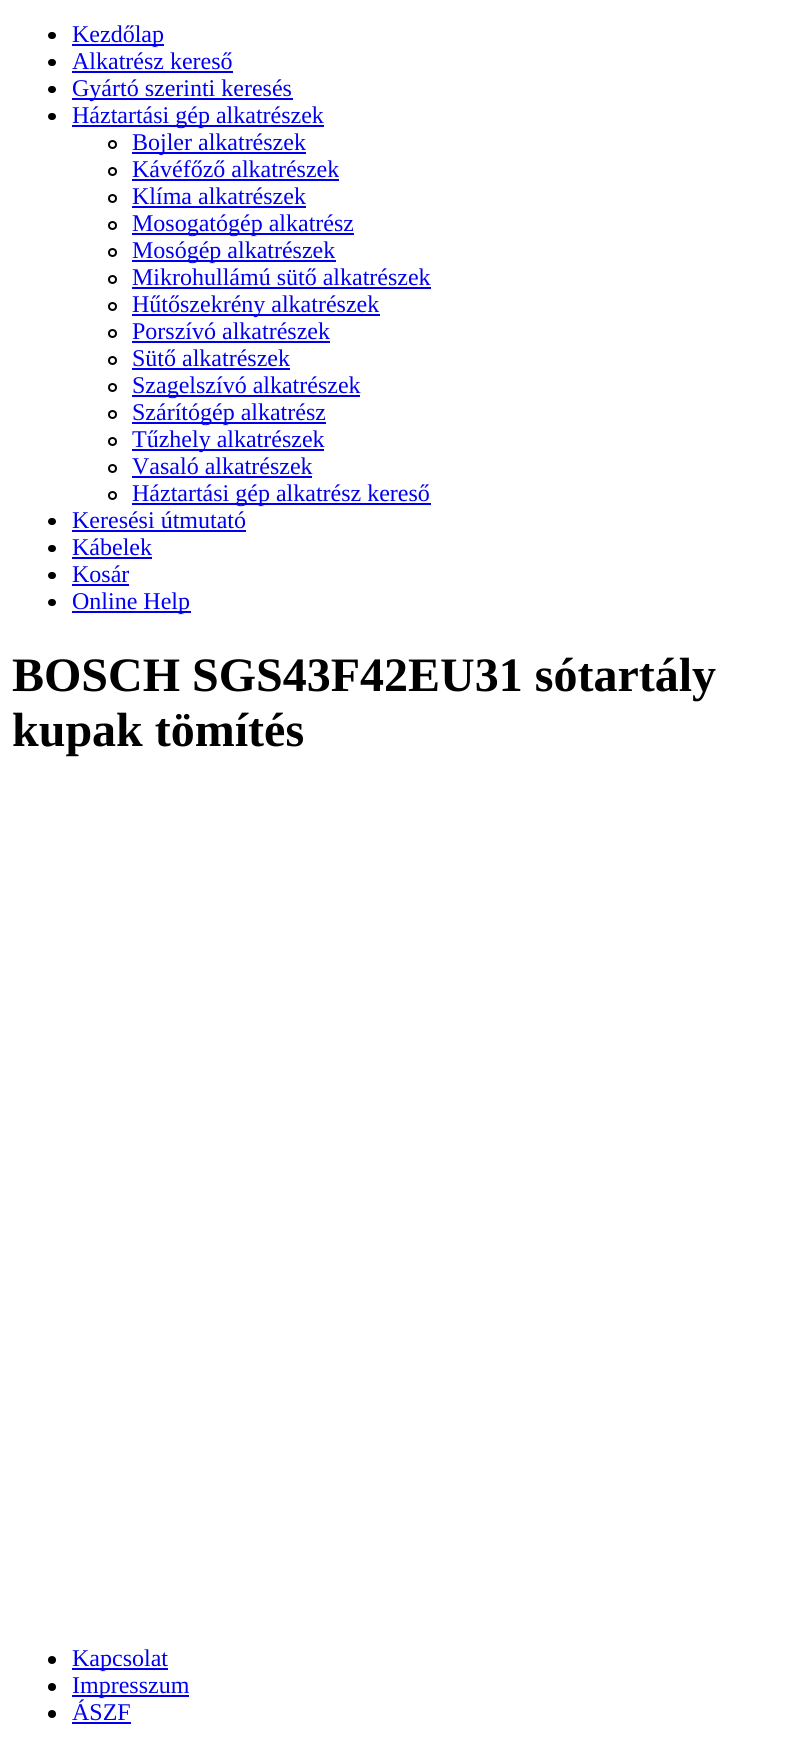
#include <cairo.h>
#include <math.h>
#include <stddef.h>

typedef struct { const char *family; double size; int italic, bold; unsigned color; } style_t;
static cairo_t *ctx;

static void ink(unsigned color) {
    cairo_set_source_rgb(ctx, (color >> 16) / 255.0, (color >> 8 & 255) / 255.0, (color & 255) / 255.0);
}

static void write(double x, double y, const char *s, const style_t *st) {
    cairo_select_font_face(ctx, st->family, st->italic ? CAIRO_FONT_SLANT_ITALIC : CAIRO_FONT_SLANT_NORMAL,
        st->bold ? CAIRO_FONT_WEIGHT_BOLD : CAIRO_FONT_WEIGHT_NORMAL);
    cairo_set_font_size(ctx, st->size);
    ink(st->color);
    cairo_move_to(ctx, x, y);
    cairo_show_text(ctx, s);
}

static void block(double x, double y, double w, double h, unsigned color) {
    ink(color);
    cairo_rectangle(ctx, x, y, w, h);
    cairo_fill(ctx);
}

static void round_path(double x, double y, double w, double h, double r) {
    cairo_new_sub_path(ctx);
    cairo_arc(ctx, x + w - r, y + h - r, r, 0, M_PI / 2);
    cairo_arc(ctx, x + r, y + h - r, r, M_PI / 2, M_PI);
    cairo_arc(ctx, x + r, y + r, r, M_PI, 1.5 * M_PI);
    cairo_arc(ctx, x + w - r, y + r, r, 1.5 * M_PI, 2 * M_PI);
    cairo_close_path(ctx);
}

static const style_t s1 = {"Liberation Serif", 24, 0, 0, 0x0000ee};
static const style_t s2 = {"Liberation Serif", 48, 0, 1, 0x000000};

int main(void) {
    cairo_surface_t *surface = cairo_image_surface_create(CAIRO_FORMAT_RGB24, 795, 1744);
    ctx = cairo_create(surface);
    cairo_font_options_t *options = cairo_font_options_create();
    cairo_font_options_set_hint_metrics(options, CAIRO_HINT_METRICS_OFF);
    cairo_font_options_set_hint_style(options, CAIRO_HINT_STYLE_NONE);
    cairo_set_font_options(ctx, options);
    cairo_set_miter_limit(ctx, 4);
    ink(0xffffff);
    cairo_paint(ctx);
    ink(0x000000);
    round_path(48, 32, 8, 7, 3.5);
    cairo_fill(ctx);
    block(72, 44, 92, 2, 0x0000ee);
    write(72, 42, "Kezdőlap", &s1);
    ink(0x000000);
    round_path(48, 59, 8, 7, 3.5);
    cairo_fill(ctx);
    write(72, 69, "Alkatrész kereső", &s1);
    block(72, 71, 161, 2, 0x0000ee);
    ink(0x000000);
    round_path(48, 86, 8, 7, 3.5);
    cairo_fill(ctx);
    block(72, 98, 221, 2, 0x0000ee);
    write(72, 96, "Gyártó szerinti keresés", &s1);
    ink(0x000000);
    round_path(48, 113, 8, 7, 3.5);
    cairo_fill(ctx);
    block(72, 125, 252, 2, 0x0000ee);
    write(72, 123, "Háztartási gép alkatrészek", &s1);
    cairo_new_path(ctx);
    cairo_arc(ctx, 112.5, 144.5, 3.5, 0, 2 * M_PI);
    ink(0x000000);
    cairo_stroke(ctx);
    block(132, 152, 174, 2, 0x0000ee);
    write(132, 150, "Bojler alkatrészek", &s1);
    cairo_new_path(ctx);
    cairo_arc(ctx, 112.5, 171.5, 3.5, 0, 2 * M_PI);
    ink(0x000000);
    cairo_stroke(ctx);
    write(132, 177, "Kávéfőző alkatrészek", &s1);
    block(132, 179, 207, 2, 0x0000ee);
    cairo_new_path(ctx);
    cairo_arc(ctx, 112.5, 198.5, 3.5, 0, 2 * M_PI);
    ink(0x000000);
    cairo_stroke(ctx);
    write(132, 204, "Klíma alkatrészek", &s1);
    block(132, 206, 174, 2, 0x0000ee);
    cairo_new_path(ctx);
    cairo_arc(ctx, 112.5, 225.5, 3.5, 0, 2 * M_PI);
    ink(0x000000);
    cairo_stroke(ctx);
    block(132, 233, 222, 2, 0x0000ee);
    write(132, 231, "Mosogatógép alkatrész", &s1);
    cairo_new_path(ctx);
    cairo_arc(ctx, 112.5, 252.5, 3.5, 0, 2 * M_PI);
    ink(0x000000);
    cairo_stroke(ctx);
    block(132, 260, 204, 2, 0x0000ee);
    write(132, 258, "Mosógép alkatrészek", &s1);
    cairo_new_path(ctx);
    cairo_arc(ctx, 112.5, 279.5, 3.5, 0, 2 * M_PI);
    ink(0x000000);
    cairo_stroke(ctx);
    write(132, 285, "Mikrohullámú sütő alkatrészek", &s1);
    block(132, 287, 299, 2, 0x0000ee);
    cairo_new_path(ctx);
    cairo_arc(ctx, 112.5, 306.5, 3.5, 0, 2 * M_PI);
    ink(0x000000);
    cairo_stroke(ctx);
    block(132, 314, 248, 2, 0x0000ee);
    write(132, 312, "Hűtőszekrény alkatrészek", &s1);
    cairo_new_path(ctx);
    cairo_arc(ctx, 112.5, 333.5, 3.5, 0, 2 * M_PI);
    ink(0x000000);
    cairo_stroke(ctx);
    write(132, 339, "Porszívó alkatrészek", &s1);
    block(132, 341, 198, 2, 0x0000ee);
    cairo_new_path(ctx);
    cairo_arc(ctx, 112.5, 360.5, 3.5, 0, 2 * M_PI);
    ink(0x000000);
    cairo_stroke(ctx);
    write(132, 366, "Sütő alkatrészek", &s1);
    block(132, 368, 158, 2, 0x0000ee);
    cairo_new_path(ctx);
    cairo_arc(ctx, 112.5, 387.5, 3.5, 0, 2 * M_PI);
    ink(0x000000);
    cairo_stroke(ctx);
    block(132, 395, 228, 2, 0x0000ee);
    write(132, 393, "Szagelszívó alkatrészek", &s1);
    cairo_new_path(ctx);
    cairo_arc(ctx, 112.5, 414.5, 3.5, 0, 2 * M_PI);
    ink(0x000000);
    cairo_stroke(ctx);
    block(132, 422, 194, 2, 0x0000ee);
    write(132, 420, "Szárítógép alkatrész", &s1);
    cairo_new_path(ctx);
    cairo_arc(ctx, 112.5, 441.5, 3.5, 0, 2 * M_PI);
    ink(0x000000);
    cairo_stroke(ctx);
    block(132, 449, 192, 2, 0x0000ee);
    write(132, 447, "Tűzhely alkatrészek", &s1);
    cairo_new_path(ctx);
    cairo_arc(ctx, 112.5, 468.5, 3.5, 0, 2 * M_PI);
    ink(0x000000);
    cairo_stroke(ctx);
    write(132, 474, "Vasaló alkatrészek", &s1);
    block(132, 476, 180, 2, 0x0000ee);
    cairo_new_path(ctx);
    cairo_arc(ctx, 112.5, 495.5, 3.5, 0, 2 * M_PI);
    ink(0x000000);
    cairo_stroke(ctx);
    block(132, 503, 299, 2, 0x0000ee);
    write(132, 501, "Háztartási gép alkatrész kereső", &s1);
    ink(0x000000);
    round_path(48, 518, 8, 7, 3.5);
    cairo_fill(ctx);
    write(72, 528, "Keresési útmutató", &s1);
    block(72, 530, 174, 2, 0x0000ee);
    ink(0x000000);
    round_path(48, 545, 8, 7, 3.5);
    cairo_fill(ctx);
    write(72, 555, "Kábelek", &s1);
    block(72, 557, 80, 2, 0x0000ee);
    ink(0x000000);
    round_path(48, 572, 8, 7, 3.5);
    cairo_fill(ctx);
    write(72, 582, "Kosár", &s1);
    block(72, 584, 57, 2, 0x0000ee);
    ink(0x000000);
    round_path(48, 599, 8, 7, 3.5);
    cairo_fill(ctx);
    block(72, 611, 119, 2, 0x0000ee);
    write(72, 609, "Online Help", &s1);
    write(12, 691, "BOSCH SGS43F42EU31 sótartály", &s2);
    write(12, 746, "kupak tömítés", &s2);
    cairo_new_path(ctx);
    cairo_arc(ctx, 52, 1660, 4, 0, 2 * M_PI);
    cairo_fill(ctx);
    block(72, 1668, 96, 2, 0x0000ee);
    write(72, 1666, "Kapcsolat", &s1);
    ink(0x000000);
    cairo_new_path(ctx);
    cairo_arc(ctx, 52, 1687, 4, 0, 2 * M_PI);
    cairo_fill(ctx);
    block(72, 1695, 117, 2, 0x0000ee);
    write(72, 1693, "Impresszum", &s1);
    ink(0x000000);
    cairo_new_path(ctx);
    cairo_arc(ctx, 52, 1714, 4, 0, 2 * M_PI);
    cairo_fill(ctx);
    write(72, 1720, "ÁSZF", &s1);
    block(72, 1722, 59, 2, 0x0000ee);
    cairo_surface_write_to_png(surface, "screenshot.png");
    cairo_font_options_destroy(options);
    cairo_destroy(ctx);
    cairo_surface_destroy(surface);
    return 0;
}
